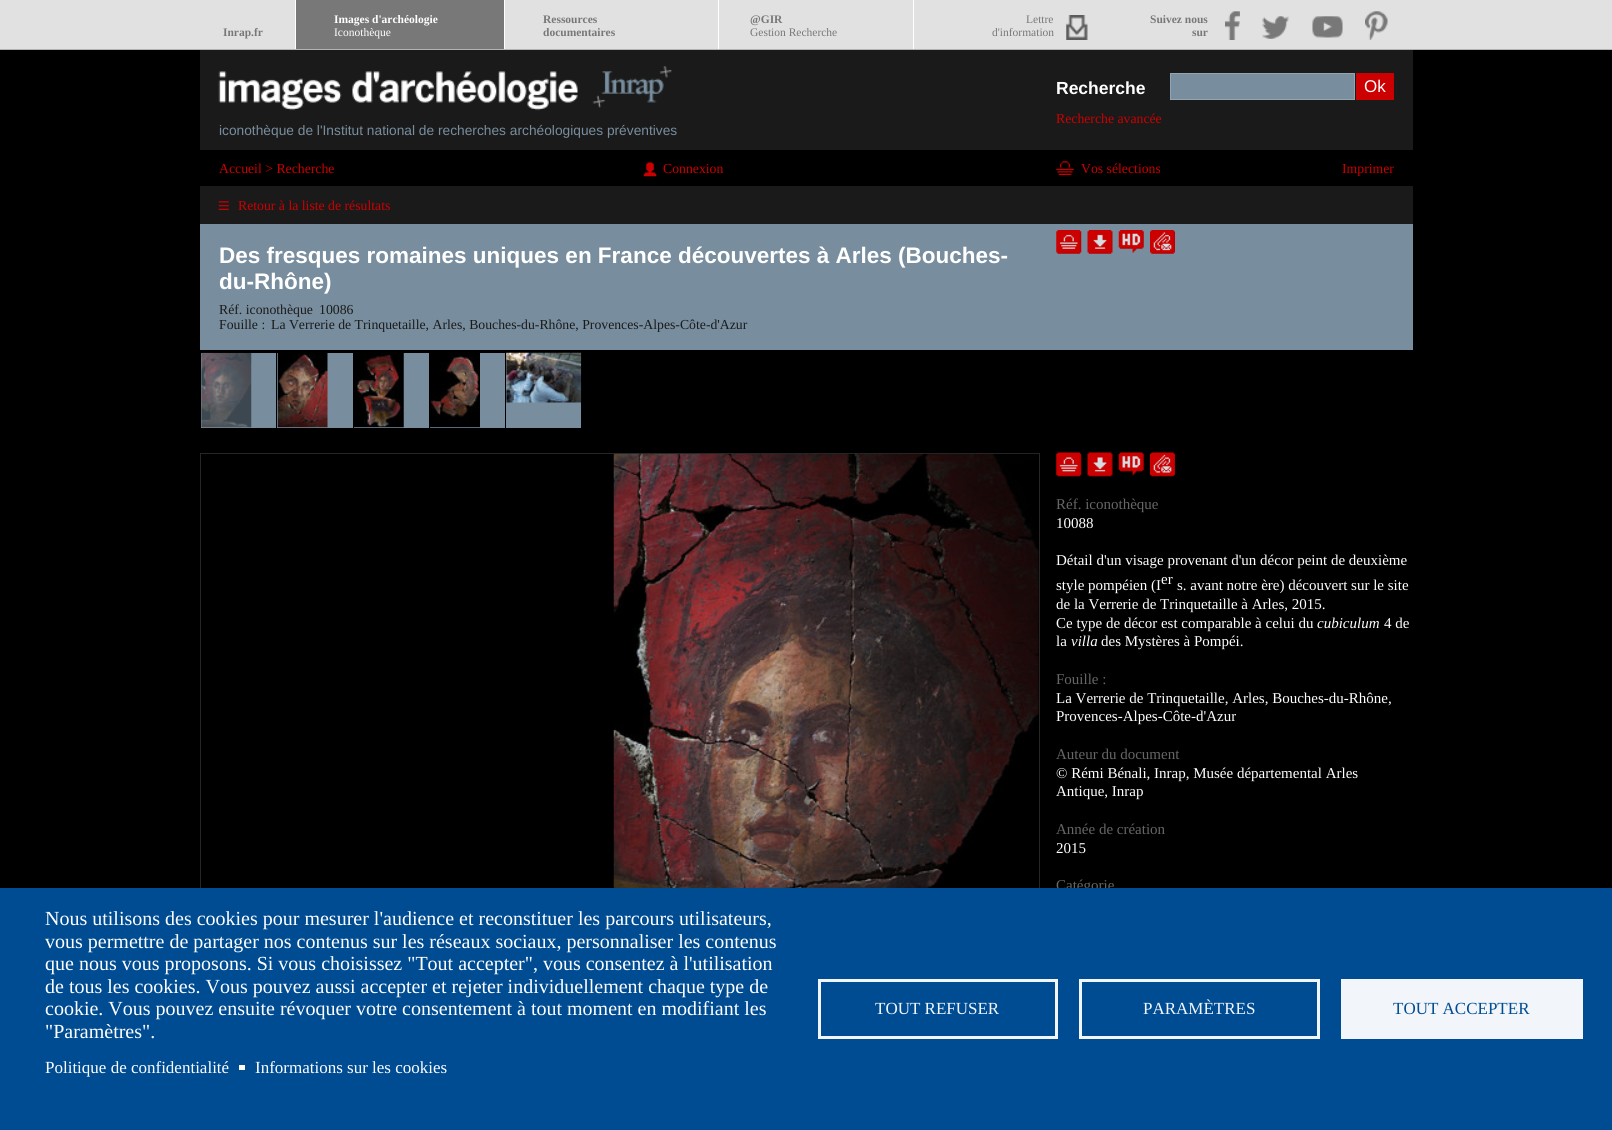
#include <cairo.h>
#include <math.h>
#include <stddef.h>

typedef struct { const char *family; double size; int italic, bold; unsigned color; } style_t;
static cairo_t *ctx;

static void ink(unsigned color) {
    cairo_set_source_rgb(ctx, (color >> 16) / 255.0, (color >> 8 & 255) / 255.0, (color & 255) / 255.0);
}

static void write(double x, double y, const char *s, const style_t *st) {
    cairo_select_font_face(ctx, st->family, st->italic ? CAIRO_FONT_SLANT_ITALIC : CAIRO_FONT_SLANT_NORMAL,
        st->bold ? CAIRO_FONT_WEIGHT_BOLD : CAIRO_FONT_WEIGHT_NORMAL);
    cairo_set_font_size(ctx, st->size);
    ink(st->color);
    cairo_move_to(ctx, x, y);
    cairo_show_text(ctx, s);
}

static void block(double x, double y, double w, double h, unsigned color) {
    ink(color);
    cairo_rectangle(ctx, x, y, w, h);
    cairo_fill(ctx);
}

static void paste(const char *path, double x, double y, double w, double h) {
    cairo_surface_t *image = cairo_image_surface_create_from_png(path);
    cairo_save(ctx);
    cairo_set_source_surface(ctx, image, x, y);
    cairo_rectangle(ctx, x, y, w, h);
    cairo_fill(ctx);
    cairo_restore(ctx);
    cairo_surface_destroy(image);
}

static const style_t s1 = {"Liberation Serif", 11.5, 0, 1, 0x787878};
static const style_t s2 = {"Liberation Serif", 11.5, 0, 1, 0xffffff};
static const style_t s3 = {"Liberation Serif", 11.5, 0, 0, 0xffffff};
static const style_t s4 = {"Liberation Serif", 11.5, 0, 0, 0x787878};
static const style_t s5 = {"Liberation Sans", 17.5, 0, 1, 0xffffff};
static const style_t s6 = {"Liberation Sans", 17, 0, 0, 0xffffff};
static const style_t s7 = {"Liberation Serif", 13.75, 0, 0, 0xcc0000};
static const style_t s8 = {"Liberation Sans", 13.75, 0, 0, 0x788e9e};
static const style_t s9 = {"Liberation Sans", 22.5, 0, 1, 0xffffff};
static const style_t s10 = {"Liberation Serif", 13.75, 0, 0, 0x1a1a1a};
static const style_t s11 = {"Liberation Serif", 15, 0, 0, 0x666666};
static const style_t s12 = {"Liberation Serif", 15, 0, 0, 0xffffff};
static const style_t s13 = {"Liberation Serif", 15, 1, 0, 0xffffff};
static const style_t s14 = {"Liberation Serif", 20, 0, 0, 0xffffff};
static const style_t s15 = {"Liberation Serif", 17, 0, 0, 0xffffff};
static const style_t s16 = {"Liberation Serif", 17, 0, 0, 0xf2f6fa};
static const style_t s17 = {"Liberation Serif", 17, 0, 0, 0x004c93};

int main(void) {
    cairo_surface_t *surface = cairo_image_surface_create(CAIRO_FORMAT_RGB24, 1612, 1130);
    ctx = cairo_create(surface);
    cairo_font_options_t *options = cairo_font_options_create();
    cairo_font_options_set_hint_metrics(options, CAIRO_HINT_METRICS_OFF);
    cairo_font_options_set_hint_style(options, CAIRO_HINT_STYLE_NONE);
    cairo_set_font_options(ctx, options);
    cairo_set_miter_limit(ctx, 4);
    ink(0x000000);
    cairo_paint(ctx);
    block(0, 0, 1612, 49, 0xe1e1e1);
    block(0, 49, 1612, 1, 0xb3b3b3);
    block(295, 0, 1, 49, 0xffffff);
    write(223, 36, "Inrap.fr", &s1);
    block(296, 0, 208, 49, 0x787878);
    block(504, 0, 1, 49, 0xffffff);
    write(334, 23, "Images d'archéologie", &s2);
    write(334, 36, "Iconothèque", &s3);
    block(718, 0, 1, 49, 0xffffff);
    write(543, 23, "Ressources", &s1);
    write(543, 36, "documentaires", &s1);
    block(913, 0, 1, 49, 0xffffff);
    write(750, 23, "@GIR", &s1);
    write(750, 36, "Gestion Recherche", &s4);
    paste("pic1.png", 1066, 15, 22, 25);
    write(1026, 23, "Lettre", &s4);
    write(992, 36, "d'information", &s4);
    write(1150, 23, "Suivez nous", &s1);
    write(1192, 36, "sur", &s1);
    paste("pic2.png", 1225, 11, 15, 29);
    paste("pic3.png", 1262, 16, 27, 23);
    paste("pic4.png", 1312, 16, 31, 22);
    paste("pic5.png", 1365, 11, 23, 29);
    block(200, 50, 1213, 100, 0x1a1a1a);
    write(1056, 94, "Recherche", &s5);
    ink(0x788e9e);
    cairo_rectangle(ctx, 1170.5, 73.5, 184, 26);
    cairo_fill_preserve(ctx);
    ink(0x93a5b1);
    cairo_set_line_width(ctx, 1);
    cairo_stroke(ctx);
    block(1356, 73, 38, 27, 0xcc0000);
    write(1364, 92, "Ok", &s6);
    write(1056, 123, "Recherche avancée", &s7);
    paste("pic6.png", 218, 66, 454, 45);
    write(219, 135, "iconothèque de l'Institut national de recherches archéologiques préventives", &s8);
    write(219, 173, "Accueil > Recherche", &s7);
    paste("pic7.png", 643, 162, 14, 15);
    write(663, 173, "Connexion", &s7);
    paste("pic8.png", 1056, 161, 18, 14);
    write(1081, 173, "Vos sélections", &s7);
    write(1342, 173, "Imprimer", &s7);
    block(200, 186, 1213, 38, 0x1a1a1a);
    paste("pic9.png", 218, 201, 11, 9);
    write(238, 210, "Retour à la liste de résultats", &s7);
    block(200, 224, 1213, 126, 0x788e9e);
    paste("pic10.png", 1056, 230, 26, 24);
    paste("pic11.png", 1087, 230, 26, 24);
    paste("pic12.png", 1118, 230, 26, 23);
    paste("pic13.png", 1150, 230, 25, 24);
    write(219, 263, "Des fresques romaines uniques en France découvertes à Arles (Bouches-", &s9);
    write(219, 289, "du-Rhône)", &s9);
    write(219, 314, "Réf. iconothèque", &s10);
    write(319, 314, "10086", &s10);
    write(219, 329, "Fouille :", &s10);
    write(271, 329, "La Verrerie de Trinquetaille, Arles, Bouches-du-Rhône, Provences-Alpes-Côte-d'Azur", &s10);
    block(201, 353, 75, 75, 0x788e9e);
    paste("pic14.png", 201, 352, 51, 76);
    block(277, 353, 76, 75, 0x788e9e);
    paste("pic15.png", 277, 353, 51, 75);
    block(354, 353, 75, 75, 0x788e9e);
    paste("pic16.png", 354, 353, 50, 75);
    block(430, 353, 75, 75, 0x788e9e);
    paste("pic17.png", 430, 353, 50, 75);
    block(506, 353, 75, 75, 0x788e9e);
    paste("pic18.png", 506, 352, 76, 51);
    cairo_rectangle(ctx, 200.5, 453.5, 839, 644);
    ink(0x262626);
    cairo_stroke(ctx);
    paste("pic19.png", 613, 453, 426, 435);
    paste("pic20.png", 1056, 452, 26, 25);
    paste("pic21.png", 1087, 452, 26, 25);
    paste("pic22.png", 1118, 452, 26, 24);
    paste("pic23.png", 1150, 452, 25, 25);
    write(1056, 509, "Réf. iconothèque", &s11);
    write(1056, 528, "10088", &s12);
    write(1056, 565, "Détail d'un visage provenant d'un décor peint de deuxième", &s12);
    write(1056, 590, "style pompéien (I", &s12);
    write(1161, 584, "er", &s12);
    write(1177, 590, "s. avant notre ère) découvert sur le site", &s12);
    write(1056, 609, "de la Verrerie de Trinquetaille à Arles, 2015.", &s12);
    write(1056, 628, "Ce type de décor est comparable à celui du", &s12);
    write(1317, 628, "cubiculum", &s13);
    write(1384, 628, "4 de", &s12);
    write(1056, 646, "la", &s12);
    write(1071, 646, "villa", &s13);
    write(1101, 646, "des Mystères à Pompéi.", &s12);
    write(1056, 684, "Fouille :", &s11);
    write(1056, 703, "La Verrerie de Trinquetaille, Arles, Bouches-du-Rhône,", &s12);
    write(1056, 721, "Provences-Alpes-Côte-d'Azur", &s12);
    write(1056, 759, "Auteur du document", &s11);
    write(1056, 778, "© Rémi Bénali, Inrap, Musée départemental Arles", &s12);
    write(1056, 796, "Antique, Inrap", &s12);
    write(1056, 834, "Année de création", &s11);
    write(1056, 853, "2015", &s12);
    write(1056, 890, "Catégorie", &s11);
    block(0, 888, 1612, 242, 0x004c93);
    write(45, 925, "Nous utilisons des cookies pour mesurer l'audience et reconstituer les parcours utilisateurs,", &s14);
    write(45, 948, "vous permettre de partager nos contenus sur les réseaux sociaux, personnaliser les contenus", &s14);
    write(45, 970, "que nous vous proposons. Si vous choisissez \"Tout accepter\", vous consentez à l'utilisation", &s14);
    write(45, 993, "de tous les cookies. Vous pouvez aussi accepter et rejeter individuellement chaque type de", &s14);
    write(45, 1015, "cookie. Vous pouvez ensuite révoquer votre consentement à tout moment en modifiant les", &s14);
    write(45, 1038, "\"Paramètres\".", &s14);
    write(45, 1073, "Politique de confidentialité", &s15);
    block(239, 1065, 6, 5, 0xffffff);
    write(255, 1073, "Informations sur les cookies", &s15);
    cairo_rectangle(ctx, 819.5, 980.5, 237, 57);
    ink(0xf2f6fa);
    cairo_set_line_width(ctx, 3);
    cairo_stroke(ctx);
    write(875, 1014, "TOUT REFUSER", &s16);
    cairo_rectangle(ctx, 1080.5, 980.5, 238, 57);
    cairo_stroke(ctx);
    write(1143, 1014, "PARAMÈTRES", &s16);
    block(1341, 979, 242, 60, 0xf2f6fa);
    write(1393, 1014, "TOUT ACCEPTER", &s17);
    cairo_surface_write_to_png(surface, "screenshot.png");
    cairo_font_options_destroy(options);
    cairo_destroy(ctx);
    cairo_surface_destroy(surface);
    return 0;
}
